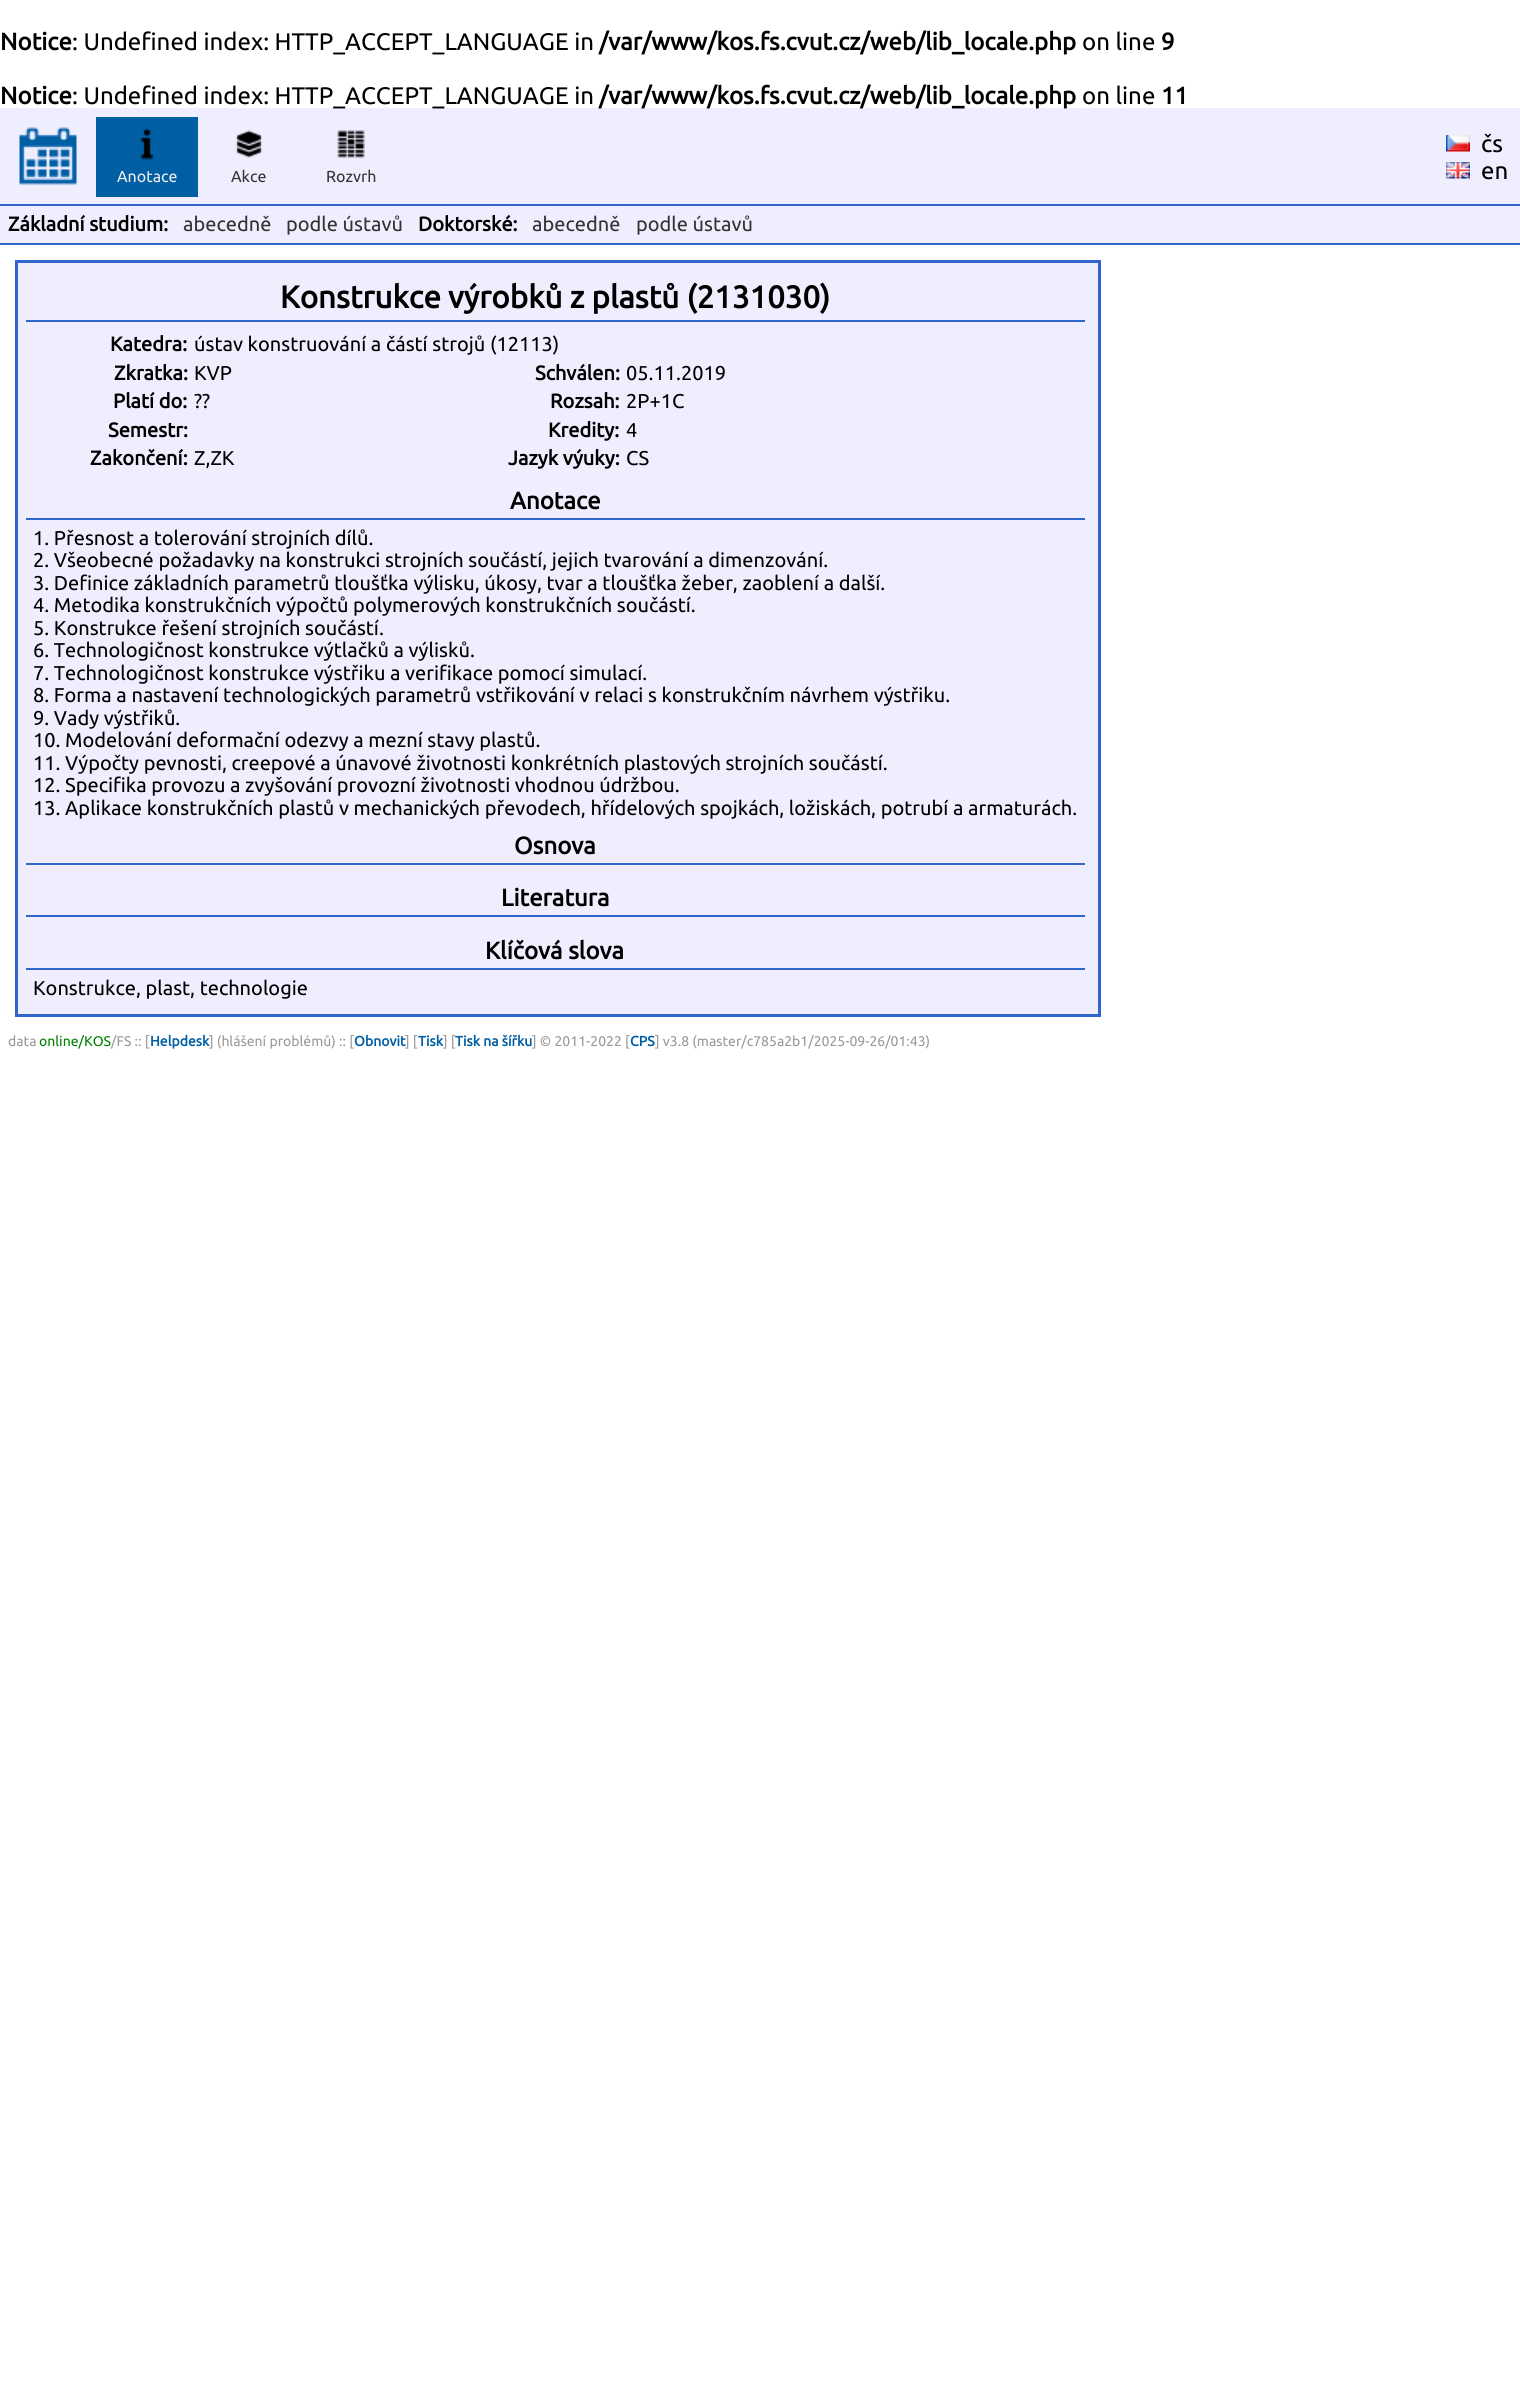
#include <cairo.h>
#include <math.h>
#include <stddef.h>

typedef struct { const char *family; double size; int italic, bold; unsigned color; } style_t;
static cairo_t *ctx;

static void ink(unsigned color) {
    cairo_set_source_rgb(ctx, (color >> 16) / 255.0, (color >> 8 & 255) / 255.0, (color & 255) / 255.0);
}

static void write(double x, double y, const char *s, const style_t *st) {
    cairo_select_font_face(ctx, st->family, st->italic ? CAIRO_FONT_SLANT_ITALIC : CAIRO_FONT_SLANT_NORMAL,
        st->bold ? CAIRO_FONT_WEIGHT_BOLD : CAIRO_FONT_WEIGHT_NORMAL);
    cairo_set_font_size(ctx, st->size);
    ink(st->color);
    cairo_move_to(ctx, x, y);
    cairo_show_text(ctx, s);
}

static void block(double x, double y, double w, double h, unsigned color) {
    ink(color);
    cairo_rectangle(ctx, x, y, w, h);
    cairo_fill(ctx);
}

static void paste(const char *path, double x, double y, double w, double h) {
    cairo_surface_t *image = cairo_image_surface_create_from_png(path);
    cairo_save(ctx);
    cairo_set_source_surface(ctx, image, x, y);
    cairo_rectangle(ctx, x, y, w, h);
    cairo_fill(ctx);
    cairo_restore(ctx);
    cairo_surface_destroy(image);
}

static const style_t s1 = {"Ubuntu", 24, 0, 1, 0x000000};
static const style_t s2 = {"Ubuntu", 24, 0, 0, 0x000000};
static const style_t s3 = {"Ubuntu", 16, 0, 0, 0xeeeeee};
static const style_t s4 = {"Ubuntu", 16, 0, 0, 0x333333};
static const style_t s5 = {"Ubuntu", 20, 0, 1, 0x000000};
static const style_t s6 = {"Ubuntu", 20, 0, 0, 0x333333};
static const style_t s7 = {"Ubuntu", 31.25, 0, 1, 0x000000};
static const style_t s8 = {"Ubuntu", 20, 0, 0, 0x000000};
static const style_t s9 = {"Ubuntu", 14, 0, 0, 0x999999};
static const style_t s10 = {"Ubuntu", 14, 0, 0, 0x008000};
static const style_t s11 = {"Ubuntu", 14, 0, 1, 0x005ea5};

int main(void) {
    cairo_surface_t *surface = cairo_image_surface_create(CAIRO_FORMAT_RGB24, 1520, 2394);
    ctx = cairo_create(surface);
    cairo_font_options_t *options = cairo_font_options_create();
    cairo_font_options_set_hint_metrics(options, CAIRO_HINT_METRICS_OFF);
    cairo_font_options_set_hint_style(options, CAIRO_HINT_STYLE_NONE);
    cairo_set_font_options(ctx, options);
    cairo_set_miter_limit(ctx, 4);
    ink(0xffffff);
    cairo_paint(ctx);
    write(0, 50, "Notice", &s1);
    write(72, 50, ": Undefined index: HTTP_ACCEPT_LANGUAGE in", &s2);
    write(599, 50, "/var/www/kos.fs.cvut.cz/web/lib_locale.php", &s1);
    write(1082, 50, "on line", &s2);
    write(1161, 50, "9", &s1);
    write(0, 104, "Notice", &s1);
    block(0, 108, 1520, 96, 0xeeeeff);
    write(72, 104, ": Undefined index: HTTP_ACCEPT_LANGUAGE in", &s2);
    write(599, 104, "/var/www/kos.fs.cvut.cz/web/lib_locale.php", &s1);
    write(1082, 104, "on line", &s2);
    write(1161, 104, "11", &s1);
    block(0, 204, 1520, 2, 0x3366cc);
    paste("pic1.png", 19, 127, 58, 58);
    block(96, 117, 102, 80, 0x005ea5);
    paste("pic2.png", 140, 128, 14, 32);
    write(117, 182, "Anotace", &s3);
    paste("pic3.png", 236, 130, 26, 28);
    write(231, 182, "Akce", &s4);
    paste("pic4.png", 337, 130, 28, 28);
    write(326, 182, "Rozvrh", &s4);
    paste("pic5.png", 1446, 135, 24, 17);
    write(1481, 152, "čs", &s2);
    paste("pic6.png", 1446, 162, 24, 17);
    write(1481, 179, "en", &s2);
    block(0, 206, 1520, 37, 0xeeeeff);
    block(0, 243, 1520, 2, 0x3366cc);
    write(8, 231, "Základní studium:", &s5);
    write(183, 231, "abecedně", &s6);
    write(286, 231, "podle ústavů", &s6);
    write(418, 231, "Doktorské:", &s5);
    write(532, 231, "abecedně", &s6);
    write(636, 231, "podle ústavů", &s6);
    ink(0xeeeeff);
    cairo_rectangle(ctx, 16.5, 261.5, 1083, 754);
    cairo_fill_preserve(ctx);
    ink(0x3366cc);
    cairo_set_line_width(ctx, 3);
    cairo_stroke(ctx);
    block(26, 320, 1059, 2, 0x3366cc);
    write(280, 308, "Konstrukce výrobků z plastů (2131030)", &s7);
    write(110, 351, "Katedra:", &s5);
    write(194, 351, "ústav konstruování a částí strojů (12113)", &s8);
    write(114, 380, "Zkratka:", &s5);
    write(194, 380, "KVP", &s8);
    write(535, 380, "Schválen:", &s5);
    write(626, 380, "05.11.2019", &s8);
    write(113, 408, "Platí do:", &s5);
    write(194, 408, "?\077", &s8);
    write(550, 408, "Rozsah:", &s5);
    write(626, 408, "2P+1C", &s8);
    write(108, 437, "Semestr:", &s5);
    write(548, 437, "Kredity:", &s5);
    write(626, 437, "4", &s8);
    write(90, 465, "Zakončení:", &s5);
    write(194, 465, "Z,ZK", &s8);
    write(508, 465, "Jazyk výuky:", &s5);
    write(626, 465, "CS", &s8);
    block(26, 518, 1059, 2, 0x3366cc);
    write(510, 509, "Anotace", &s1);
    write(33, 545, "1. Přesnost a tolerování strojních dílů.", &s8);
    write(33, 567, "2. Všeobecné požadavky na konstrukci strojních součástí, jejich tvarování a dimenzování.", &s8);
    write(33, 590, "3. Definice základních parametrů tloušťka výlisku, úkosy, tvar a tloušťka žeber, zaoblení a další.", &s8);
    write(33, 612, "4. Metodika konstrukčních výpočtů polymerových konstrukčních součástí.", &s8);
    write(33, 635, "5. Konstrukce řešení strojních součástí.", &s8);
    write(33, 657, "6. Technologičnost konstrukce výtlačků a výlisků.", &s8);
    write(33, 680, "7. Technologičnost konstrukce výstřiku a verifikace pomocí simulací.", &s8);
    write(33, 702, "8. Forma a nastavení technologických parametrů vstřikování v relaci s konstrukčním návrhem výstřiku.", &s8);
    write(33, 725, "9. Vady výstřiků.", &s8);
    write(33, 747, "10. Modelování deformační odezvy a mezní stavy plastů.", &s8);
    write(33, 770, "11. Výpočty pevnosti, creepové a únavové životnosti konkrétních plastových strojních součástí.", &s8);
    write(33, 792, "12. Specifika provozu a zvyšování provozní životnosti vhodnou údržbou.", &s8);
    write(33, 815, "13. Aplikace konstrukčních plastů v mechanických převodech, hřídelových spojkách, ložiskách, potrubí a armaturách.", &s8);
    block(26, 863, 1059, 2, 0x3366cc);
    write(514, 854, "Osnova", &s1);
    block(26, 915, 1059, 2, 0x3366cc);
    write(501, 906, "Literatura", &s1);
    block(26, 968, 1059, 2, 0x3366cc);
    write(485, 959, "Klíčová slova", &s1);
    write(33, 995, "Konstrukce, plast, technologie", &s8);
    write(8, 1046, "data", &s9);
    write(39, 1046, "online/KOS", &s10);
    write(111, 1046, "/FS :: [", &s9);
    write(150, 1046, "Helpdesk", &s11);
    write(209, 1046, "] (hlášení problémů) :: [", &s9);
    write(354, 1046, "Obnovit", &s11);
    write(405, 1046, "] [", &s9);
    write(418, 1046, "Tisk", &s11);
    write(443, 1046, "] [", &s9);
    write(455, 1046, "Tisk na šířku", &s11);
    write(532, 1046, "] © 2011-2022 [", &s9);
    write(630, 1046, "CPS", &s11);
    write(655, 1046, "] v3.8 (master/c785a2b1/2025-09-26/01:43)", &s9);
    cairo_surface_write_to_png(surface, "screenshot.png");
    cairo_font_options_destroy(options);
    cairo_destroy(ctx);
    cairo_surface_destroy(surface);
    return 0;
}
